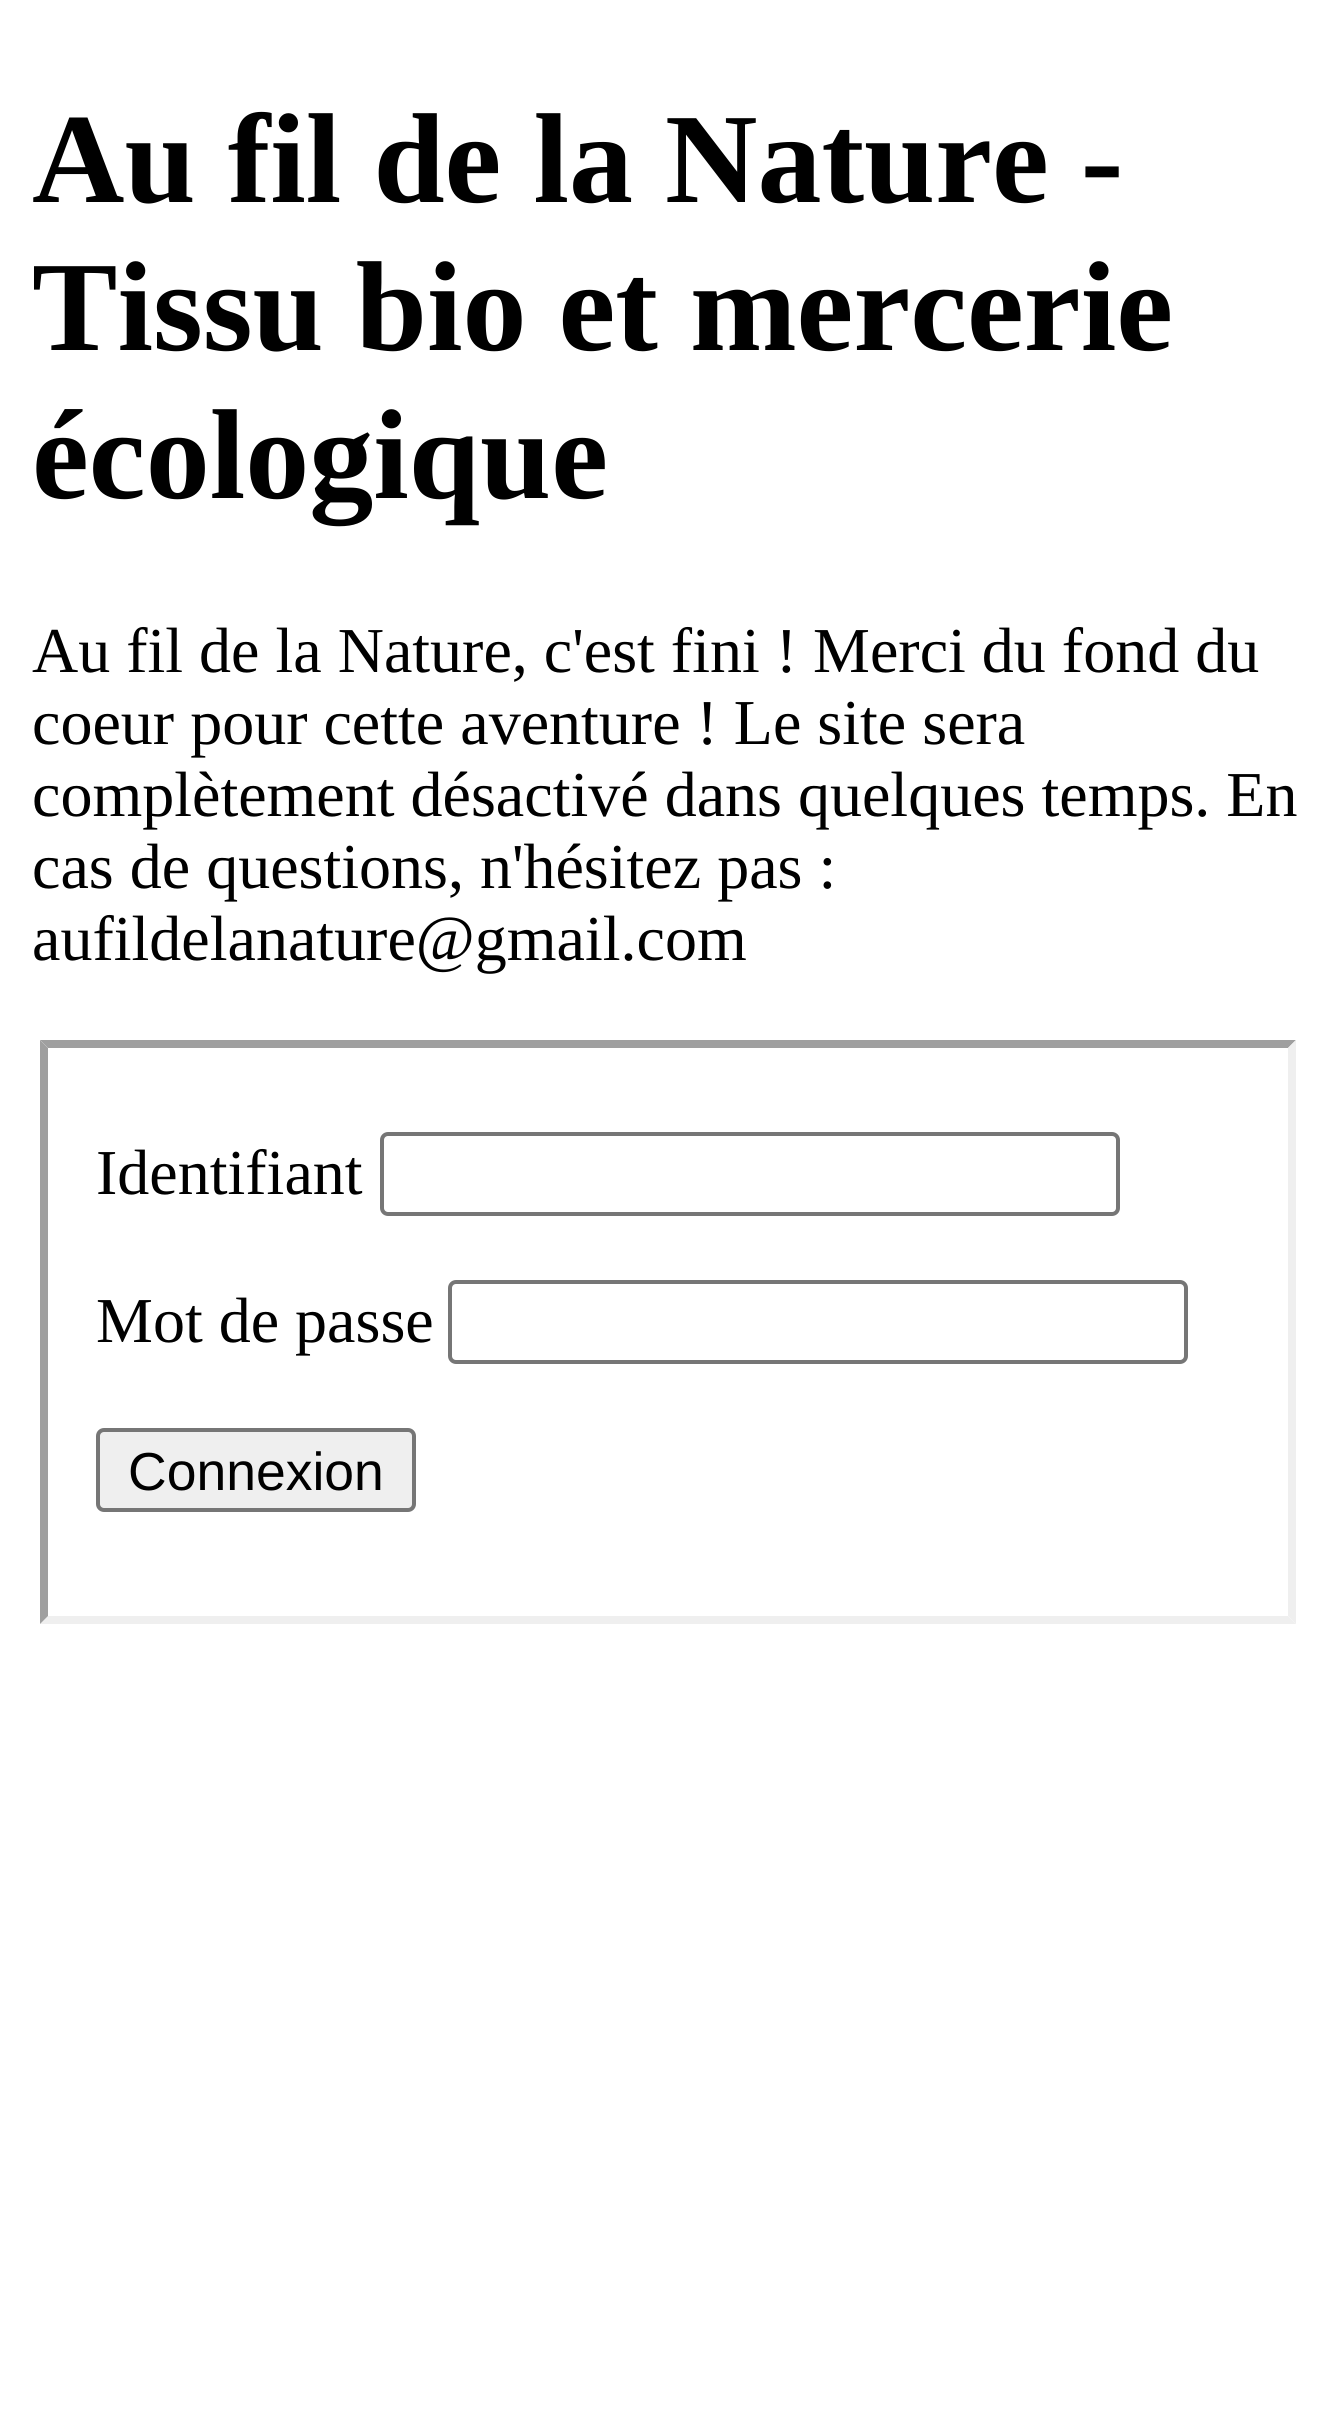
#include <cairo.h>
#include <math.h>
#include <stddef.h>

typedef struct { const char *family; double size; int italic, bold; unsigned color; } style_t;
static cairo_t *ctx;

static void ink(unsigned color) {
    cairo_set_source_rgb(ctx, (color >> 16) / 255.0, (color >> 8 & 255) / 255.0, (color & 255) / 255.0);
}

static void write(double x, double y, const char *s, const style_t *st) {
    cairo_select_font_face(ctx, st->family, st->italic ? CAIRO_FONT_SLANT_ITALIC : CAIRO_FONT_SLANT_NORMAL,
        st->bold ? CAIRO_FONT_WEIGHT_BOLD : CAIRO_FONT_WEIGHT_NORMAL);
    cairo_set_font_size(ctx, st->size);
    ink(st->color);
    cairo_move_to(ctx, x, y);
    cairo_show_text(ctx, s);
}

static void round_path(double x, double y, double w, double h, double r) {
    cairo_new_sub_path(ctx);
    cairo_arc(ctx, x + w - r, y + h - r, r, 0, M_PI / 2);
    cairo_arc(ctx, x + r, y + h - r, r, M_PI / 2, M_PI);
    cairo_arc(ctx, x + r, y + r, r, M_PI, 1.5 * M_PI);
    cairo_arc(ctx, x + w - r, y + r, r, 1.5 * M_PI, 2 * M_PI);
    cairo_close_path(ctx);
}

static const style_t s1 = {"Liberation Serif", 128, 0, 1, 0x000000};
static const style_t s2 = {"Liberation Serif", 64, 0, 0, 0x000000};
static const style_t s3 = {"Liberation Sans", 53.5, 0, 0, 0x000000};

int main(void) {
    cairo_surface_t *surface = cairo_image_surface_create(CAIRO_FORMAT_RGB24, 1336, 2416);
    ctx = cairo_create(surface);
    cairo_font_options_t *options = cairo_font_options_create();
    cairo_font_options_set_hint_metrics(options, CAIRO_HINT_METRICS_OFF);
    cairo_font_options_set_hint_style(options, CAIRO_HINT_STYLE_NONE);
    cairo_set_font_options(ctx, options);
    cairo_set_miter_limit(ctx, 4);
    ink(0xffffff);
    cairo_paint(ctx);
    write(32, 202, "Au fil de la Nature -", &s1);
    write(32, 350, "Tissu bio et mercerie", &s1);
    write(32, 498, "écologique", &s1);
    write(32, 672, "Au fil de la Nature, c'est fini ! Merci du fond du", &s2);
    write(32, 744, "coeur pour cette aventure ! Le site sera", &s2);
    write(32, 816, "complètement désactivé dans quelques temps. En", &s2);
    write(32, 888, "cas de questions, n'hésitez pas :", &s2);
    write(32, 960, "aufildelanature@gmail.com", &s2);
    ink(0x9f9f9f);
    cairo_new_path(ctx);
    cairo_move_to(ctx, 40, 1040);
    cairo_line_to(ctx, 1296, 1040);
    cairo_line_to(ctx, 1288, 1048);
    cairo_line_to(ctx, 48, 1048);
    cairo_close_path(ctx);
    cairo_fill(ctx);
    ink(0xefefef);
    cairo_new_path(ctx);
    cairo_move_to(ctx, 1296, 1040);
    cairo_line_to(ctx, 1296, 1624);
    cairo_line_to(ctx, 1288, 1616);
    cairo_line_to(ctx, 1288, 1048);
    cairo_close_path(ctx);
    cairo_fill(ctx);
    cairo_new_path(ctx);
    cairo_move_to(ctx, 1296, 1624);
    cairo_line_to(ctx, 40, 1624);
    cairo_line_to(ctx, 48, 1616);
    cairo_line_to(ctx, 1288, 1616);
    cairo_close_path(ctx);
    cairo_fill(ctx);
    ink(0x9f9f9f);
    cairo_new_path(ctx);
    cairo_move_to(ctx, 40, 1624);
    cairo_line_to(ctx, 40, 1040);
    cairo_line_to(ctx, 48, 1048);
    cairo_line_to(ctx, 48, 1616);
    cairo_close_path(ctx);
    cairo_fill(ctx);
    write(96, 1194, "Identifiant", &s2);
    round_path(382, 1134, 736, 80, 6);
    ink(0x767676);
    cairo_set_line_width(ctx, 4);
    cairo_stroke(ctx);
    write(96, 1342, "Mot de passe", &s2);
    round_path(450, 1282, 736, 80, 6);
    ink(0x767676);
    cairo_stroke(ctx);
    ink(0xefefef);
    round_path(98, 1430, 316, 80, 6);
    cairo_fill_preserve(ctx);
    ink(0x767676);
    cairo_stroke(ctx);
    write(128, 1490, "Connexion", &s3);
    cairo_surface_write_to_png(surface, "screenshot.png");
    cairo_font_options_destroy(options);
    cairo_destroy(ctx);
    cairo_surface_destroy(surface);
    return 0;
}
